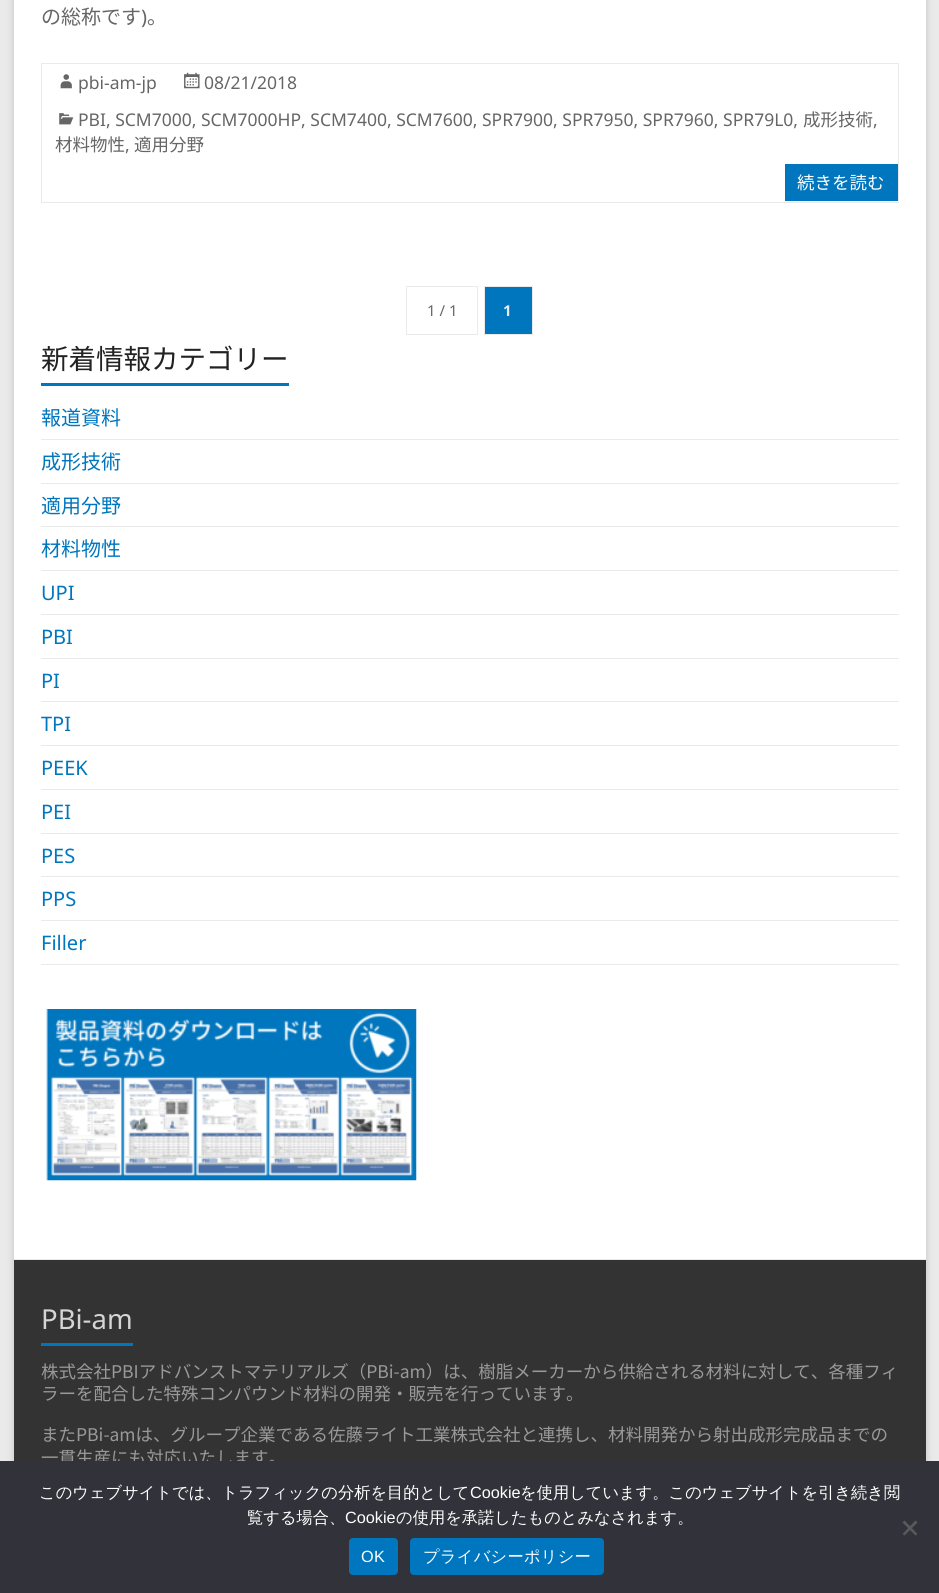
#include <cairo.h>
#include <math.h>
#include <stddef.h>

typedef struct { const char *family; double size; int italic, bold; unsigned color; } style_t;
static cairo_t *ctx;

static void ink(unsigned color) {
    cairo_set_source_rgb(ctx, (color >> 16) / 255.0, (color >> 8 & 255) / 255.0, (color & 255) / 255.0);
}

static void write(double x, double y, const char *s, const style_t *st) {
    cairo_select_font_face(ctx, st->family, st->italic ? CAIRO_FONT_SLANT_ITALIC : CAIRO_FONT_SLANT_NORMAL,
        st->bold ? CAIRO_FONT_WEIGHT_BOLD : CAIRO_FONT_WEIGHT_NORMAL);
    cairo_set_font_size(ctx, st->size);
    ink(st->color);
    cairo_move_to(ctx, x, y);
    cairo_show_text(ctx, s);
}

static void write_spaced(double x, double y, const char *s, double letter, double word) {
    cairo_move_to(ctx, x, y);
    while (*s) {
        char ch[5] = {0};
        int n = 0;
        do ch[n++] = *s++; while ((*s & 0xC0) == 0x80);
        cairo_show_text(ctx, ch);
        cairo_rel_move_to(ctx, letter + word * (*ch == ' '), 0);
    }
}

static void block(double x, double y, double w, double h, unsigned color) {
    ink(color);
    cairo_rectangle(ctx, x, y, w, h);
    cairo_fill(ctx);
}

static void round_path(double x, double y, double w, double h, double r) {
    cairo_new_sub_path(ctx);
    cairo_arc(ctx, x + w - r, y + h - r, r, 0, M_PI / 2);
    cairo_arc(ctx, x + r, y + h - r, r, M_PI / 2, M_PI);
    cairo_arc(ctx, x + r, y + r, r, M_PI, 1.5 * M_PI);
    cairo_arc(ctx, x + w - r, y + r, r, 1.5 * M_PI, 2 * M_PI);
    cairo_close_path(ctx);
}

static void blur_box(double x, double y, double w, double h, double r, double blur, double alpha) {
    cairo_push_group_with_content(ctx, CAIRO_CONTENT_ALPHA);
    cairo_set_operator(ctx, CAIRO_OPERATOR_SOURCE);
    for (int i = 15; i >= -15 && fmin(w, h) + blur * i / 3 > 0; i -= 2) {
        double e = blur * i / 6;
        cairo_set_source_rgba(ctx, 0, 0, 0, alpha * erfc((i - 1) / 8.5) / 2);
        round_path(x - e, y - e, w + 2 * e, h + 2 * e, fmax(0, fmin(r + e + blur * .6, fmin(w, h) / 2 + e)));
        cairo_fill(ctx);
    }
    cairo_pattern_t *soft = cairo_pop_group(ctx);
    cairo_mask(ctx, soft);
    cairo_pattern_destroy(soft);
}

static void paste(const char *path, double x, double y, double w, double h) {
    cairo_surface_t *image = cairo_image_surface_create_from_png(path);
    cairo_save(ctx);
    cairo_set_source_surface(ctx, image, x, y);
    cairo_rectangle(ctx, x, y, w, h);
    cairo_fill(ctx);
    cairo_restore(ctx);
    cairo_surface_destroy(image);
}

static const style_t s1 = {"Noto Sans JP", 20, 0, 0, 0x666666};
static const style_t s2 = {"Noto Sans", 20, 0, 0, 0x666666};
static const style_t s3 = {"Noto Sans", 17.5, 0, 0, 0x666666};
static const style_t s4 = {"Noto Sans JP", 17.5, 0, 0, 0x666666};
static const style_t s5 = {"Noto Sans JP", 17.5, 0, 0, 0xffffff};
static const style_t s6 = {"Noto Sans", 15, 0, 0, 0x666666};
static const style_t s7 = {"Noto Sans", 15, 0, 1, 0xeaeaea};
static const style_t s8 = {"Noto Sans JP", 27.5, 0, 0, 0x222222};
static const style_t s9 = {"Noto Sans JP", 20, 0, 0, 0x0076be};
static const style_t s10 = {"Noto Sans", 20, 0, 0, 0x0076be};
static const style_t s11 = {"Noto Sans", 27.5, 0, 0, 0xd5d5d5};
static const style_t s12 = {"Noto Sans JP", 17.5, 0, 0, 0x999999};
static const style_t s13 = {"WenQuanYi Zen Hei Medium", 16.25, 0, 0, 0xffffff};
static const style_t s14 = {"Liberation Sans", 16.25, 0, 0, 0xffffff};

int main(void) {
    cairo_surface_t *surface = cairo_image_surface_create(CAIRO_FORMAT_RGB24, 939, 1593);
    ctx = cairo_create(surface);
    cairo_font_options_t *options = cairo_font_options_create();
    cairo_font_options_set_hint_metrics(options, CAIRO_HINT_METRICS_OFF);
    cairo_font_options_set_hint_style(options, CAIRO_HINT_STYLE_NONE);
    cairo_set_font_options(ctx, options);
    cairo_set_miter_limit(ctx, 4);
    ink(0xeaeaea);
    cairo_paint(ctx);
    ink(0x646464);
    blur_box(14, -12, 912, 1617, 0, 4, 0.3);
    block(14, 0, 912, 1259, 0xffffff);
    write(41, 24, "の総称です", &s1);
    write(141, 24, ")", &s2);
    write(147, 24, "。", &s1);
    cairo_rectangle(ctx, 41.5, 63.5, 857, 139);
    ink(0xeaeaea);
    cairo_set_line_width(ctx, 1);
    cairo_stroke(ctx);
    paste("pic1.png", 60, 74, 12, 15);
    write(78, 89, "pbi-am-jp", &s3);
    paste("pic2.png", 184, 72, 16, 17);
    write(204, 89, "08/21/2018", &s3);
    paste("pic3.png", 59, 113, 15, 12);
    write(78, 126, "PBI, SCM7000, SCM7000HP, SCM7400, SCM7600, SPR7900, SPR7950, SPR7960, SPR79L0,", &s3);
    write(803, 126, "成形技術", &s4);
    write(873, 126, ",", &s3);
    write(55, 151, "材料物性", &s4);
    write(125, 151, ",", &s3);
    write(134, 151, "適用分野", &s4);
    block(785, 164, 113, 37, 0x0076be);
    write(797, 189, "続きを読む", &s5);
    cairo_rectangle(ctx, 406.5, 286.5, 71, 48);
    ink(0xeaeaea);
    cairo_stroke(ctx);
    write(427, 316, "1 / 1", &s6);
    ink(0x0076be);
    cairo_rectangle(ctx, 484.5, 286.5, 48, 48);
    cairo_fill_preserve(ctx);
    ink(0xeaeaea);
    cairo_stroke(ctx);
    write(503, 316, "1", &s7);
    write(41, 369, "新着情報カテゴリー", &s8);
    block(41, 383, 248, 3, 0x0076be);
    block(41, 439, 858, 1, 0xeaeaea);
    write(41, 425, "報道資料", &s9);
    block(41, 483, 858, 1, 0xeaeaea);
    write(41, 469, "成形技術", &s9);
    block(41, 526, 858, 1, 0xeaeaea);
    write(41, 513, "適用分野", &s9);
    block(41, 570, 858, 1, 0xeaeaea);
    write(41, 556, "材料物性", &s9);
    block(41, 614, 858, 1, 0xeaeaea);
    write(41, 600, "UPI", &s10);
    block(41, 658, 858, 1, 0xeaeaea);
    write(41, 644, "PBI", &s10);
    block(41, 701, 858, 1, 0xeaeaea);
    write(41, 688, "PI", &s10);
    block(41, 745, 858, 1, 0xeaeaea);
    write(41, 731, "TPI", &s10);
    block(41, 789, 858, 1, 0xeaeaea);
    write(41, 775, "PEEK", &s10);
    block(41, 833, 858, 1, 0xeaeaea);
    write(41, 819, "PEI", &s10);
    block(41, 876, 858, 1, 0xeaeaea);
    write(41, 863, "PES", &s10);
    block(41, 920, 858, 1, 0xeaeaea);
    write(41, 906, "PPS", &s10);
    block(41, 964, 858, 1, 0xeaeaea);
    write(41, 950, "Filler", &s10);
    paste("pic4.png", 46, 1009, 371, 172);
    block(14, 1260, 912, 201, 0x333333);
    block(14, 1259, 912, 1, 0xeaeaea);
    write(41, 1329, "PBi-am", &s11);
    block(41, 1343, 92, 3, 0x0076be);
    write(41, 1378, "株式会社PBIアドバンストマテリアルズ（PBi-am）は、樹脂メーカーから供給される材料に対して、各種フィ", &s12);
    write(41, 1400, "ラーを配合した特殊コンパウンド材料の開発・販売を行っています。", &s12);
    write(41, 1441, "またPBi-amは、グループ企業である佐藤ライト工業株式会社と連携し、材料開発から射出成形完成品までの", &s12);
    write(41, 1464, "一貫生産にも対応いたします。", &s12);
    block(0, 1461, 939, 132, 0x32323a);
    write(39, 1498, "このウェブサイトでは、トラフィックの分析を目的として", &s13);
    write(470, 1498, "Cookie", &s14);
    write(520, 1498, "を使用しています。このウェブサイトを引き続き閲", &s13);
    write(247, 1523, "覧する場合、", &s13);
    write(345, 1523, "Cookie", &s14);
    write(396, 1523, "の使用を承諾したものとみなされます。", &s13);
    ink(0x59595d);
    cairo_new_path(ctx);
    cairo_move_to(ctx, 915.5, 1520.5);
    cairo_line_to(ctx, 917.5, 1522.5);
    cairo_line_to(ctx, 904.5, 1535.5);
    cairo_line_to(ctx, 902.5, 1534);
    cairo_close_path(ctx);
    cairo_fill(ctx);
    cairo_new_path(ctx);
    cairo_move_to(ctx, 902.5, 1522.5);
    cairo_line_to(ctx, 904.5, 1520.5);
    cairo_line_to(ctx, 917.5, 1534);
    cairo_line_to(ctx, 915.5, 1535.5);
    cairo_close_path(ctx);
    cairo_fill(ctx);
    ink(0x0076be);
    round_path(349, 1538, 49, 37, 4);
    cairo_fill(ctx);
    cairo_select_font_face(ctx, "Liberation Sans", CAIRO_FONT_SLANT_NORMAL, CAIRO_FONT_WEIGHT_NORMAL);
    ink(0xffffff);
    write_spaced(361, 1562, "OK", 0.25, 0);
    ink(0x0076be);
    round_path(410, 1538, 194, 37, 4);
    cairo_fill(ctx);
    cairo_select_font_face(ctx, "WenQuanYi Zen Hei Medium", CAIRO_FONT_SLANT_NORMAL, CAIRO_FONT_WEIGHT_NORMAL);
    ink(0xffffff);
    write_spaced(423, 1562, "プライバシーポリシー", 0.25, 0);
    cairo_surface_write_to_png(surface, "screenshot.png");
    cairo_font_options_destroy(options);
    cairo_destroy(ctx);
    cairo_surface_destroy(surface);
    return 0;
}
